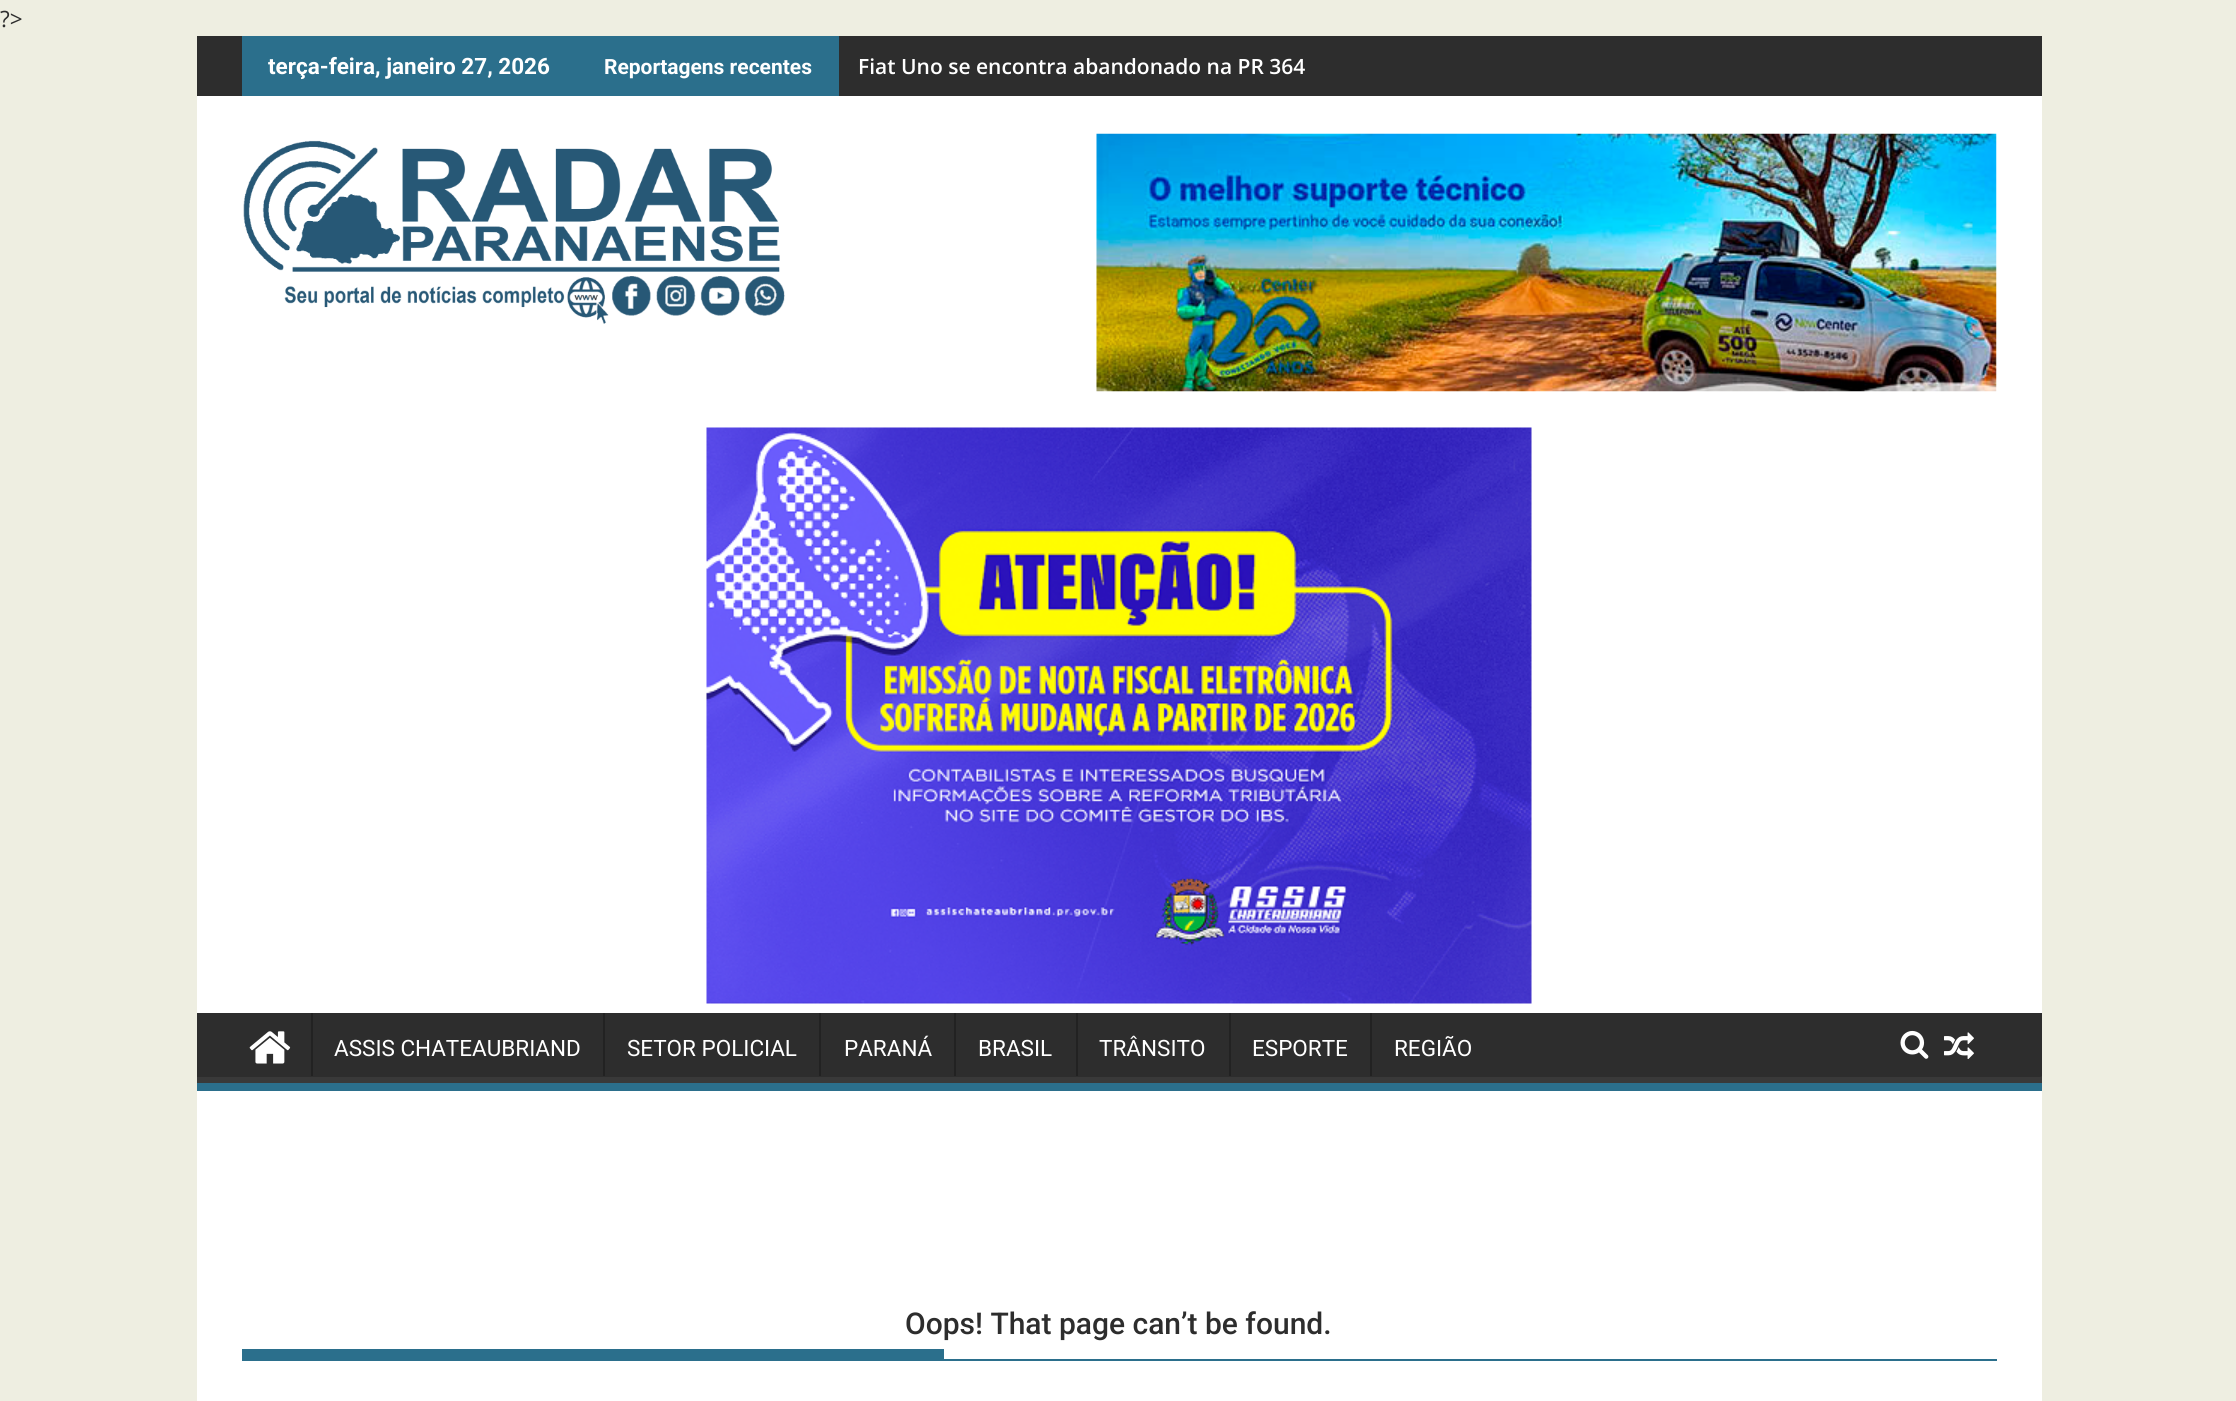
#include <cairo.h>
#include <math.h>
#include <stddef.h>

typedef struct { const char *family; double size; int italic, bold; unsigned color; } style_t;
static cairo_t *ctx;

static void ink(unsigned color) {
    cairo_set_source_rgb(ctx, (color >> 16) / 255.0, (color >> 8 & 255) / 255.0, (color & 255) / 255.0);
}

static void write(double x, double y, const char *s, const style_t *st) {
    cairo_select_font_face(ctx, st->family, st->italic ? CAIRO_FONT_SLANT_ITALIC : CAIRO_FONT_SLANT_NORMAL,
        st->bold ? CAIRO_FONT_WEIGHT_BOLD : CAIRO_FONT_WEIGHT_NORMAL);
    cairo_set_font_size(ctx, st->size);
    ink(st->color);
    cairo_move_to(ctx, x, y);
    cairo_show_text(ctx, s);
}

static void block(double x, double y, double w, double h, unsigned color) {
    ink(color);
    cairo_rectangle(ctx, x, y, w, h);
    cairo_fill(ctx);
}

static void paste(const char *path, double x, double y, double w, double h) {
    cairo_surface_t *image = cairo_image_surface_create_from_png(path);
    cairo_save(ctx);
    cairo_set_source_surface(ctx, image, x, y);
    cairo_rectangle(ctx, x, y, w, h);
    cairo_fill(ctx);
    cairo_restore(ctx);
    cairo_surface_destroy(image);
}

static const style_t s1 = {"Open Sans", 22.5, 0, 0, 0x2d2d2d};
static const style_t s2 = {"Roboto", 22.5, 0, 1, 0xffffff};
static const style_t s3 = {"Roboto", 21, 0, 1, 0xffffff};
static const style_t s4 = {"Open Sans SemiBold", 21, 0, 0, 0xffffff};
static const style_t s5 = {"Roboto", 22.5, 0, 0, 0xffffff};
static const style_t s6 = {"Roboto Medium", 30, 0, 0, 0x2d2d2d};

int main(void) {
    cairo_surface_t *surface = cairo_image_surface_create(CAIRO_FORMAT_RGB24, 2236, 1401);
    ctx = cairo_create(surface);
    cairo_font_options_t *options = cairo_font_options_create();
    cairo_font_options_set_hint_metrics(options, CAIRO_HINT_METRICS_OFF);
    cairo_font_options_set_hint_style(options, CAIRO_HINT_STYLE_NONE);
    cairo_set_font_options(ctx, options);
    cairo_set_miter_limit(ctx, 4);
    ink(0xeeeee1);
    cairo_paint(ctx);
    write(0, 27, "?>", &s1);
    block(197, 96, 1845, 1305, 0xffffff);
    block(197, 36, 1845, 60, 0x2d2d2d);
    block(242, 36, 597, 60, 0x2b6f8c);
    write(268, 74, "terça-feira, janeiro 27, 2026", &s2);
    write(604, 74, "Reportagens recentes", &s3);
    write(858, 74, "Fiat Uno se encontra abandonado na PR 364", &s4);
    paste("pic1.png", 243, 140, 542, 184);
    paste("pic2.png", 1096, 133, 901, 259);
    paste("pic3.png", 706, 427, 826, 577);
    block(197, 1013, 1845, 64, 0x2d2d2d);
    cairo_save(ctx);
    cairo_rectangle(ctx, 197, 1013, 1845, 70);
    cairo_clip(ctx);
    ink(0x393939);
    cairo_set_fill_rule(ctx, CAIRO_FILL_RULE_EVEN_ODD);
    cairo_new_path(ctx);
    cairo_move_to(ctx, 48, 864);
    cairo_line_to(ctx, 2190, 864);
    cairo_line_to(ctx, 2190, 1232);
    cairo_line_to(ctx, 48, 1232);
    cairo_close_path(ctx);
    cairo_move_to(ctx, 195, 1004);
    cairo_line_to(ctx, 2040, 1004);
    cairo_curve_to(ctx, 2041, 1004, 2042, 1004, 2042, 1005);
    cairo_line_to(ctx, 2042, 1076);
    cairo_curve_to(ctx, 2042, 1076, 2041, 1077, 2040, 1077);
    cairo_line_to(ctx, 195, 1077);
    cairo_curve_to(ctx, 194, 1077, 194, 1076, 194, 1076);
    cairo_line_to(ctx, 194, 1005);
    cairo_curve_to(ctx, 194, 1004, 194, 1004, 195, 1004);
    cairo_close_path(ctx);
    cairo_fill(ctx);
    cairo_restore(ctx);
    block(197, 1083, 1845, 8, 0x2b6f8c);
    paste("pic4.png", 249, 1031, 42, 33);
    block(311, 1013, 2, 63, 0x222222);
    write(334, 1056, "ASSIS CHATEAUBRIAND", &s5);
    block(603, 1013, 2, 63, 0x222222);
    write(627, 1056, "SETOR POLICIAL", &s5);
    block(819, 1013, 2, 63, 0x222222);
    write(844, 1056, "PARANÁ", &s5);
    block(954, 1013, 2, 63, 0x222222);
    write(978, 1056, "BRASIL", &s5);
    block(1076, 1013, 2, 63, 0x222222);
    write(1099, 1056, "TRÂNSITO", &s5);
    block(1229, 1013, 2, 63, 0x222222);
    write(1252, 1056, "ESPORTE", &s5);
    block(1370, 1013, 2, 63, 0x222222);
    write(1394, 1056, "REGIÃO", &s5);
    paste("pic5.png", 1900, 1030, 29, 29);
    paste("pic6.png", 1944, 1032, 30, 27);
    block(242, 1359, 1755, 2, 0x2b6f8c);
    write(905, 1334, "Oops! That page can’t be found.", &s6);
    block(242, 1349, 702, 10, 0x2b6f8c);
    cairo_surface_write_to_png(surface, "screenshot.png");
    cairo_font_options_destroy(options);
    cairo_destroy(ctx);
    cairo_surface_destroy(surface);
    return 0;
}
